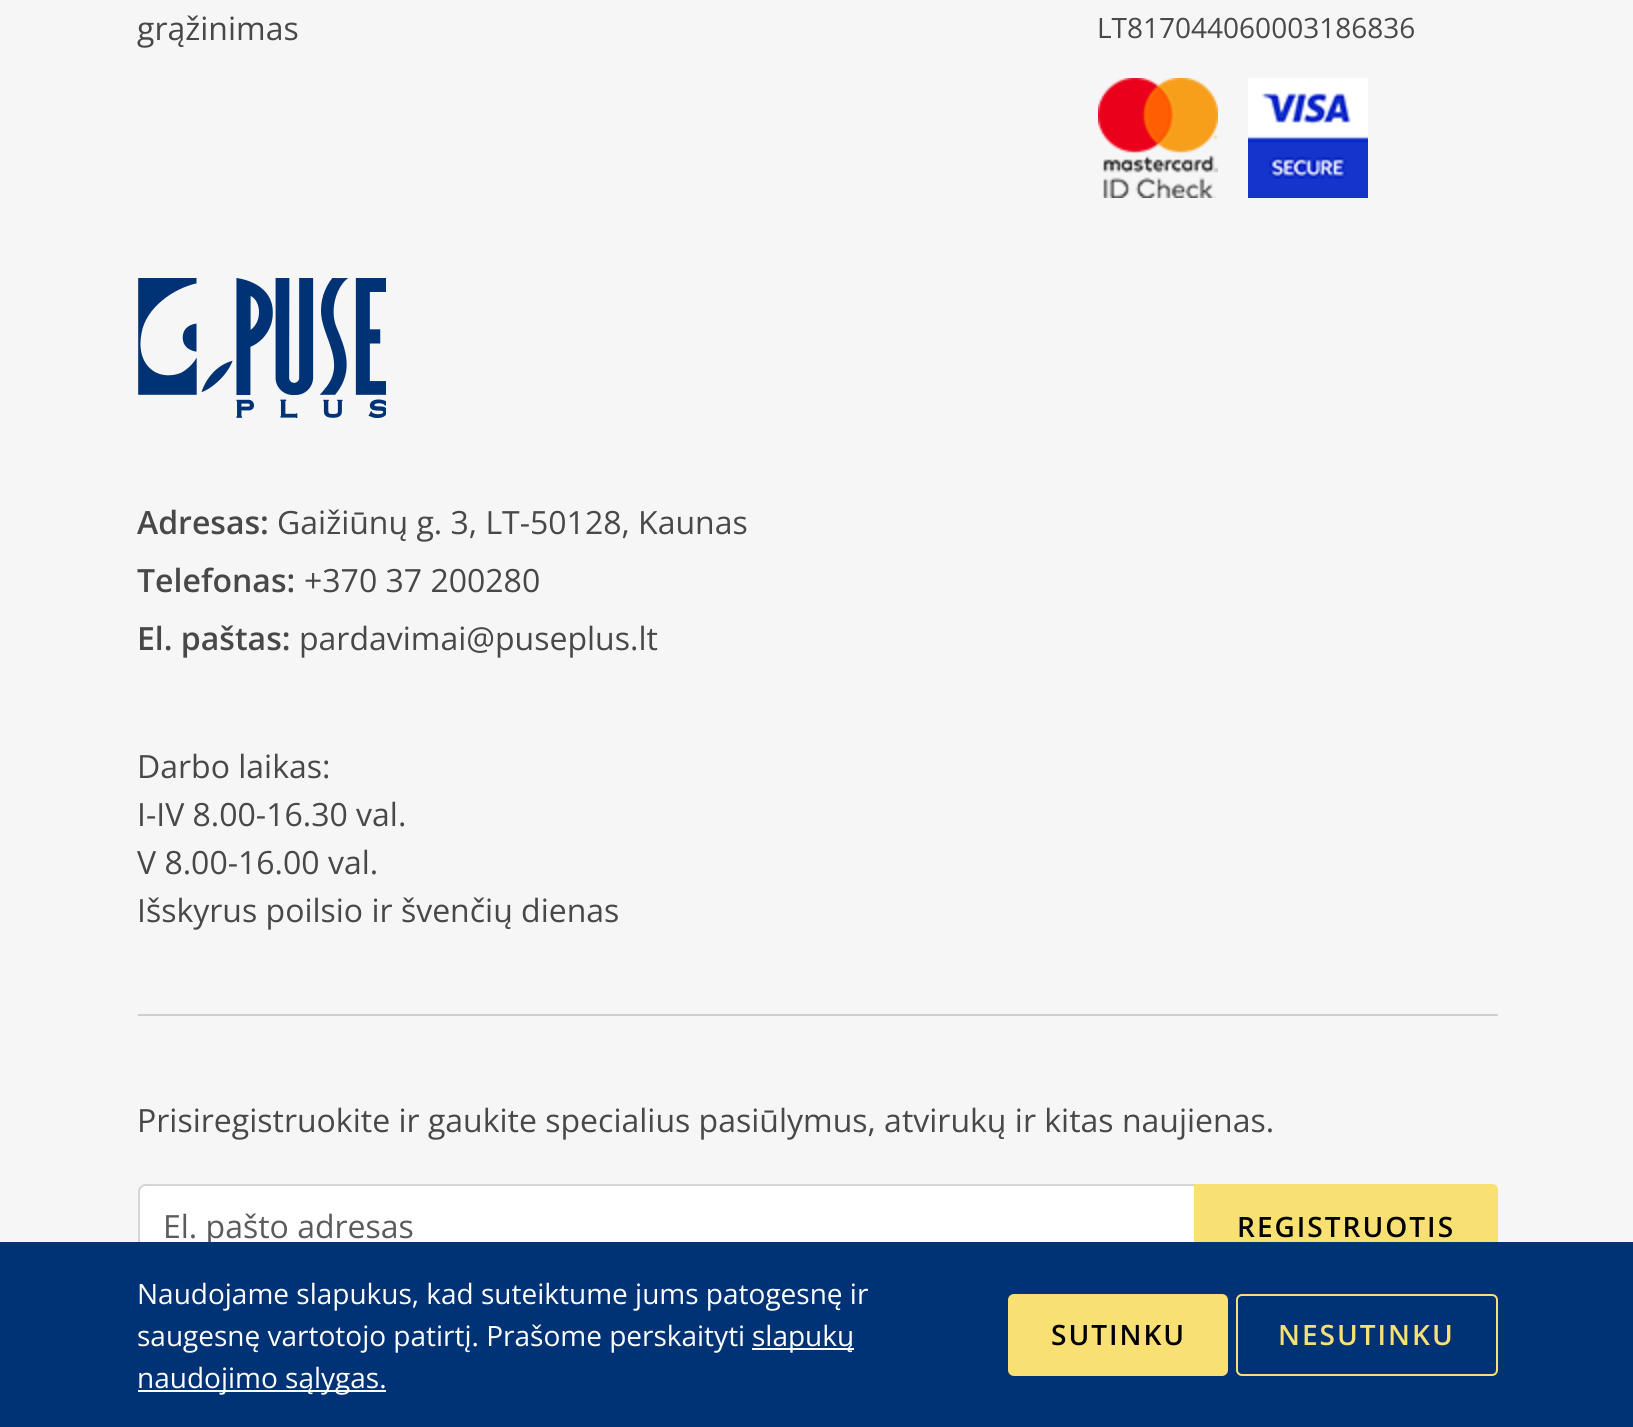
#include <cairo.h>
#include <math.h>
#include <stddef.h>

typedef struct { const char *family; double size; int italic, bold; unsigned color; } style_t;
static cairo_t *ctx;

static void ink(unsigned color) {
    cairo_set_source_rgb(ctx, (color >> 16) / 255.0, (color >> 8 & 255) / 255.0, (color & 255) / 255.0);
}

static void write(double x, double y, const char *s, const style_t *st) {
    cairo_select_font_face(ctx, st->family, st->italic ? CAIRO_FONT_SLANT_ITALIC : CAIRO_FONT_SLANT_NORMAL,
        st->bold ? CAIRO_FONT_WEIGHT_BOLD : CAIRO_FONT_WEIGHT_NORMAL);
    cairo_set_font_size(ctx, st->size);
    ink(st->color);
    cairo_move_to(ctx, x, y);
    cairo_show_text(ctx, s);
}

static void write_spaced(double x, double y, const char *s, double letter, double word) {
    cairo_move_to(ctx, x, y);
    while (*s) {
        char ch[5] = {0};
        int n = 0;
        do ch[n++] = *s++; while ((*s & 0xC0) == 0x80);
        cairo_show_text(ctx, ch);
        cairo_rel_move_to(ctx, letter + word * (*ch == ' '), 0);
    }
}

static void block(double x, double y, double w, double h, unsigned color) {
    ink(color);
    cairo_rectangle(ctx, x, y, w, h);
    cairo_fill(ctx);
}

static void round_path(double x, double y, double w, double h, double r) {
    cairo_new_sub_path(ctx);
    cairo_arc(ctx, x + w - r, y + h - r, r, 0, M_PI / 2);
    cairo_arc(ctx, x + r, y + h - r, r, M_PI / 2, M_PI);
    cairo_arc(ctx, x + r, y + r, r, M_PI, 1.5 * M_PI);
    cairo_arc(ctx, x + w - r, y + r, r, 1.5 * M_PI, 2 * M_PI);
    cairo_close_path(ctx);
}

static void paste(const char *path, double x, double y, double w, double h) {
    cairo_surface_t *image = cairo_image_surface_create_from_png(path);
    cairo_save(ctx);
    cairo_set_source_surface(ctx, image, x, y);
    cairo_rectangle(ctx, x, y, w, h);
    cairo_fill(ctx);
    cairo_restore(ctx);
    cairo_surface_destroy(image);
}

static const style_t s1 = {"Open Sans", 32, 0, 0, 0x484848};
static const style_t s2 = {"Open Sans", 28, 0, 0, 0x484848};
static const style_t s3 = {"Open Sans SemiBold", 32, 0, 0, 0x484848};
static const style_t s4 = {"Open Sans", 32, 0, 0, 0x5b5b5b};
static const style_t s5 = {"Open Sans", 28, 0, 0, 0xffffff};

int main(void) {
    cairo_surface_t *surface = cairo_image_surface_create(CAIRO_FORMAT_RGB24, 1633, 1427);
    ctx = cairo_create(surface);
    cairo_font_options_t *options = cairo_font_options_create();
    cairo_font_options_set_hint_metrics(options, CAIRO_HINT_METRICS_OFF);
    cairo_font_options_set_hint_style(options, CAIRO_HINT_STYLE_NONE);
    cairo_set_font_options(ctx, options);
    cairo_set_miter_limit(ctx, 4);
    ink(0xf6f6f6);
    cairo_paint(ctx);
    write(137, 40, "grąžinimas", &s1);
    write(1097, 38, "LT817044060003186836", &s2);
    paste("pic1.png", 1098, 78, 120, 120);
    paste("pic2.png", 1248, 78, 120, 120);
    paste("pic3.png", 138, 278, 248, 140);
    write(137, 534, "Adresas:", &s3);
    write(277, 534, "Gaižiūnų g. 3, LT-50128, Kaunas", &s1);
    write(137, 592, "Telefonas:", &s3);
    write(304, 592, "+370 37 200280", &s1);
    write(137, 650, "El. paštas:", &s3);
    write(299, 650, "pardavimai@puseplus.lt", &s1);
    write(137, 778, "Darbo laikas:", &s1);
    write(137, 826, "I-IV 8.00-16.30 val.", &s1);
    write(137, 874, "V 8.00-16.00 val.", &s1);
    write(137, 922, "Išskyrus poilsio ir švenčių dienas", &s1);
    block(138, 1014, 1360, 2, 0xcfcfcf);
    write(137, 1132, "Prisiregistruokite ir gaukite specialius pasiūlymus, atvirukų ir kitas naujienas.", &s1);
    ink(0xffffff);
    cairo_new_path(ctx);
    cairo_move_to(ctx, 146, 1185);
    cairo_line_to(ctx, 1195, 1185);
    cairo_line_to(ctx, 1195, 1269);
    cairo_line_to(ctx, 146, 1269);
    cairo_curve_to(ctx, 142, 1269, 139, 1266, 139, 1262);
    cairo_line_to(ctx, 139, 1192);
    cairo_curve_to(ctx, 139, 1188, 142, 1185, 146, 1185);
    cairo_close_path(ctx);
    cairo_fill_preserve(ctx);
    ink(0xd5d5d5);
    cairo_stroke(ctx);
    write(163, 1238, "El. pašto adresas", &s4);
    ink(0xf8e172);
    cairo_new_path(ctx);
    cairo_move_to(ctx, 1195, 1185);
    cairo_line_to(ctx, 1492, 1185);
    cairo_curve_to(ctx, 1495, 1185, 1497, 1187, 1497, 1190);
    cairo_line_to(ctx, 1497, 1264);
    cairo_curve_to(ctx, 1497, 1267, 1495, 1269, 1492, 1269);
    cairo_line_to(ctx, 1195, 1269);
    cairo_close_path(ctx);
    cairo_fill_preserve(ctx);
    cairo_stroke(ctx);
    cairo_select_font_face(ctx, "Open Sans SemiBold", CAIRO_FONT_SLANT_NORMAL, CAIRO_FONT_WEIGHT_NORMAL);
    cairo_set_font_size(ctx, 28);
    ink(0x000000);
    write_spaced(1237, 1237, "REGISTRUOTIS", 2, 0);
    block(0, 1242, 1633, 185, 0x003376);
    write(137, 1304, "Naudojame slapukus, kad suteiktume jums patogesnę ir", &s5);
    write(137, 1346, "saugesnę vartotojo patirtį. Prašome perskaityti", &s5);
    block(752, 1348, 102, 2, 0xffffff);
    write(752, 1346, "slapukų", &s5);
    block(138, 1390, 248, 2, 0xffffff);
    write(137, 1388, "naudojimo sąlygas.", &s5);
    ink(0xf8e172);
    round_path(1009, 1295, 218, 80, 5);
    cairo_fill_preserve(ctx);
    cairo_stroke(ctx);
    cairo_select_font_face(ctx, "Open Sans SemiBold", CAIRO_FONT_SLANT_NORMAL, CAIRO_FONT_WEIGHT_NORMAL);
    ink(0x000000);
    write_spaced(1051, 1345, "SUTINKU", 2, 0);
    round_path(1237, 1295, 260, 80, 5);
    ink(0xf8e172);
    cairo_stroke(ctx);
    write_spaced(1278, 1345, "NESUTINKU", 2, 0);
    cairo_surface_write_to_png(surface, "screenshot.png");
    cairo_font_options_destroy(options);
    cairo_destroy(ctx);
    cairo_surface_destroy(surface);
    return 0;
}
